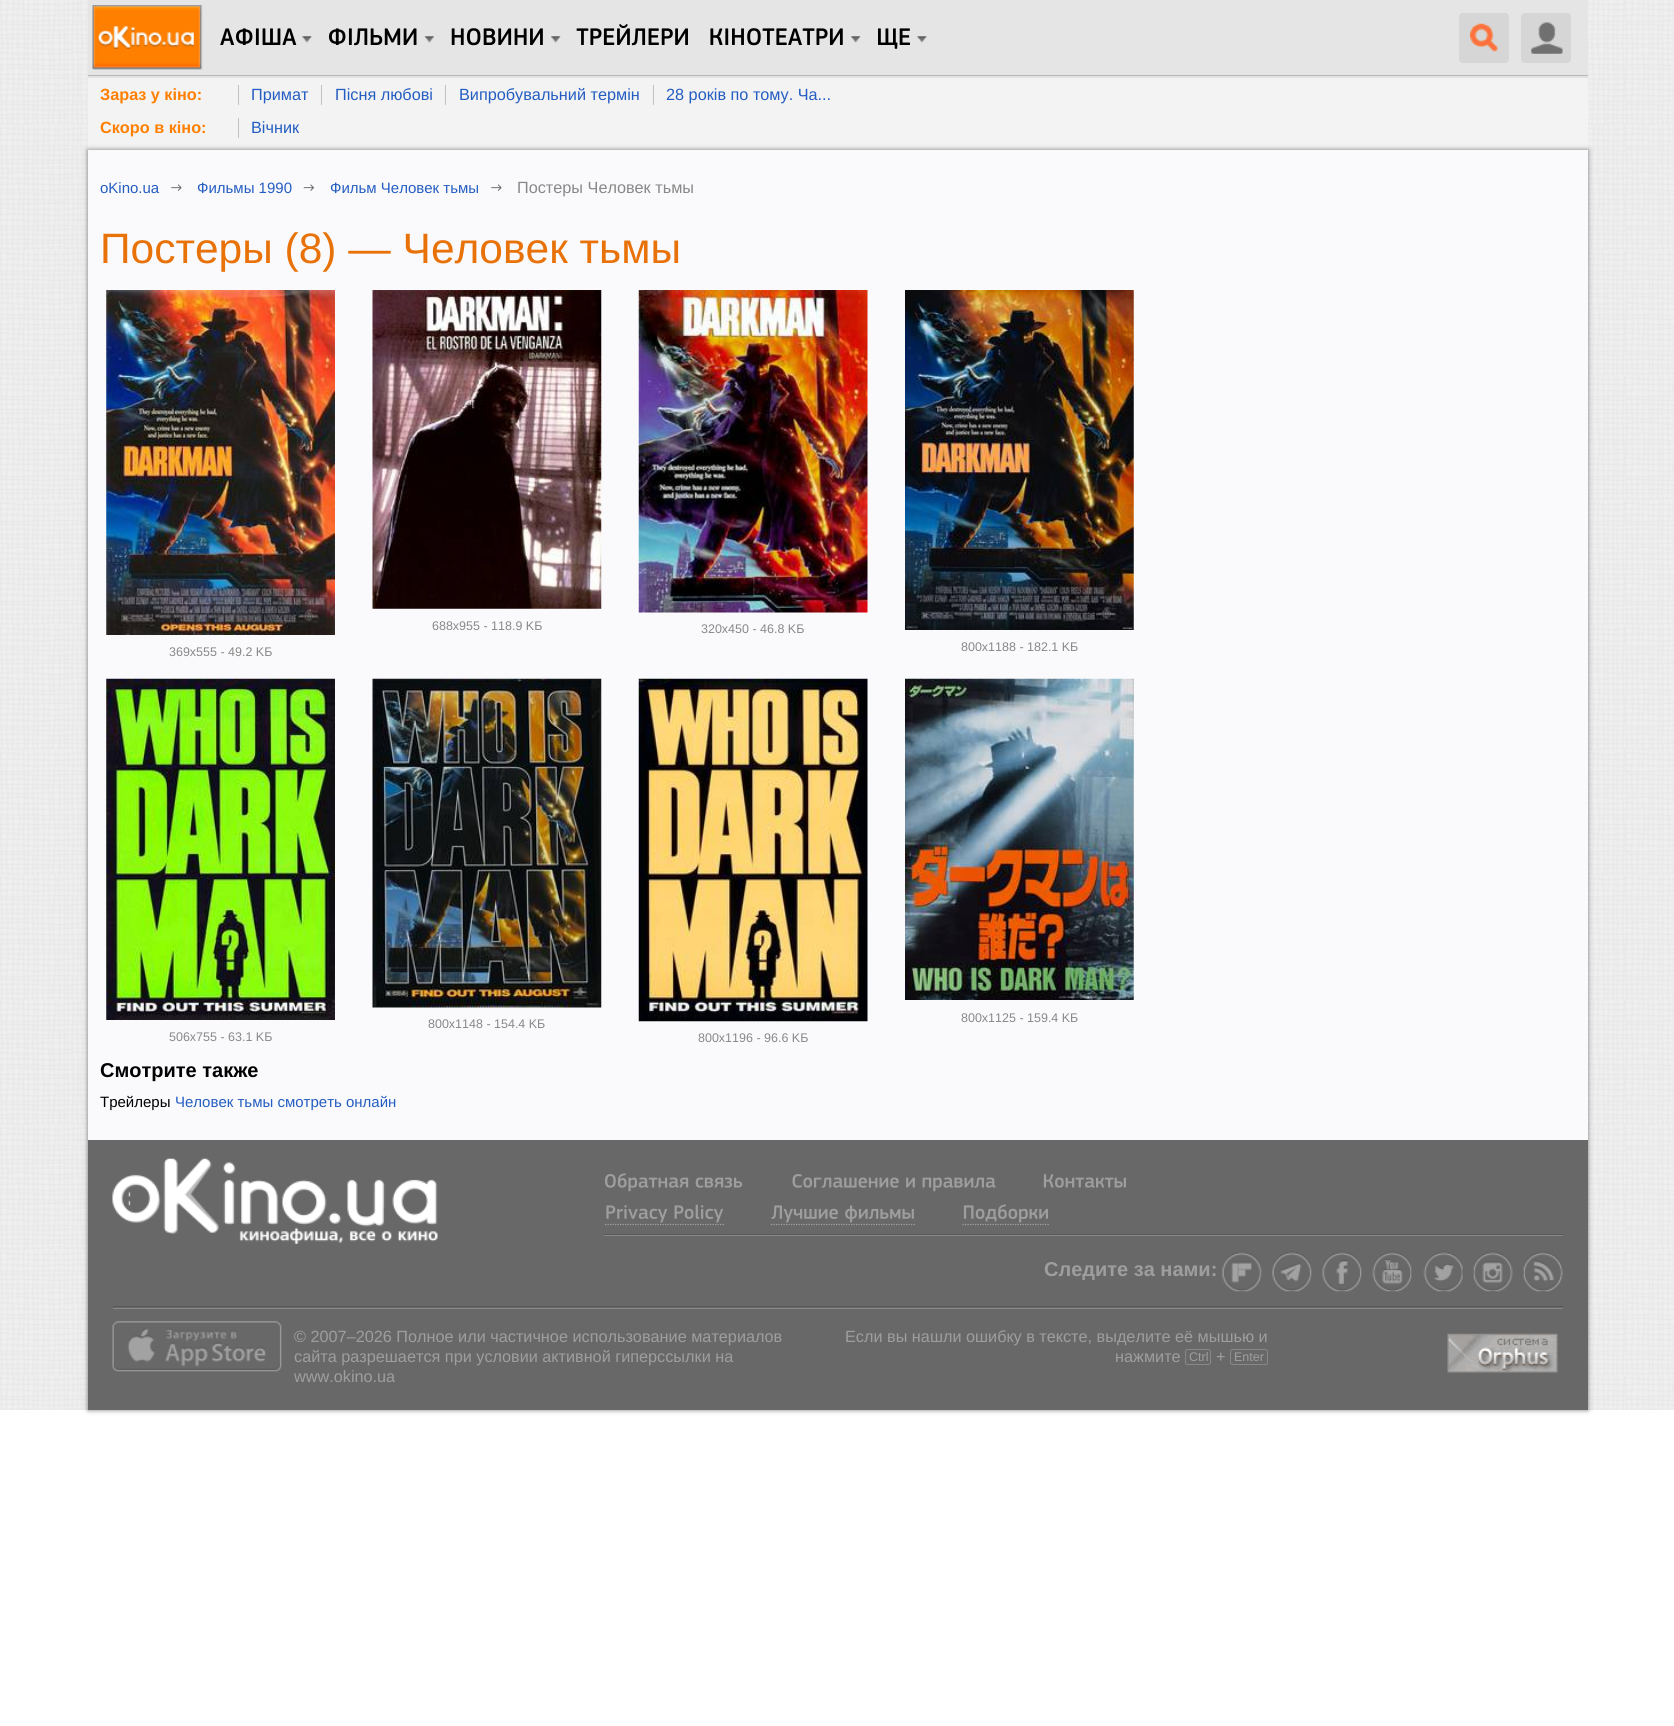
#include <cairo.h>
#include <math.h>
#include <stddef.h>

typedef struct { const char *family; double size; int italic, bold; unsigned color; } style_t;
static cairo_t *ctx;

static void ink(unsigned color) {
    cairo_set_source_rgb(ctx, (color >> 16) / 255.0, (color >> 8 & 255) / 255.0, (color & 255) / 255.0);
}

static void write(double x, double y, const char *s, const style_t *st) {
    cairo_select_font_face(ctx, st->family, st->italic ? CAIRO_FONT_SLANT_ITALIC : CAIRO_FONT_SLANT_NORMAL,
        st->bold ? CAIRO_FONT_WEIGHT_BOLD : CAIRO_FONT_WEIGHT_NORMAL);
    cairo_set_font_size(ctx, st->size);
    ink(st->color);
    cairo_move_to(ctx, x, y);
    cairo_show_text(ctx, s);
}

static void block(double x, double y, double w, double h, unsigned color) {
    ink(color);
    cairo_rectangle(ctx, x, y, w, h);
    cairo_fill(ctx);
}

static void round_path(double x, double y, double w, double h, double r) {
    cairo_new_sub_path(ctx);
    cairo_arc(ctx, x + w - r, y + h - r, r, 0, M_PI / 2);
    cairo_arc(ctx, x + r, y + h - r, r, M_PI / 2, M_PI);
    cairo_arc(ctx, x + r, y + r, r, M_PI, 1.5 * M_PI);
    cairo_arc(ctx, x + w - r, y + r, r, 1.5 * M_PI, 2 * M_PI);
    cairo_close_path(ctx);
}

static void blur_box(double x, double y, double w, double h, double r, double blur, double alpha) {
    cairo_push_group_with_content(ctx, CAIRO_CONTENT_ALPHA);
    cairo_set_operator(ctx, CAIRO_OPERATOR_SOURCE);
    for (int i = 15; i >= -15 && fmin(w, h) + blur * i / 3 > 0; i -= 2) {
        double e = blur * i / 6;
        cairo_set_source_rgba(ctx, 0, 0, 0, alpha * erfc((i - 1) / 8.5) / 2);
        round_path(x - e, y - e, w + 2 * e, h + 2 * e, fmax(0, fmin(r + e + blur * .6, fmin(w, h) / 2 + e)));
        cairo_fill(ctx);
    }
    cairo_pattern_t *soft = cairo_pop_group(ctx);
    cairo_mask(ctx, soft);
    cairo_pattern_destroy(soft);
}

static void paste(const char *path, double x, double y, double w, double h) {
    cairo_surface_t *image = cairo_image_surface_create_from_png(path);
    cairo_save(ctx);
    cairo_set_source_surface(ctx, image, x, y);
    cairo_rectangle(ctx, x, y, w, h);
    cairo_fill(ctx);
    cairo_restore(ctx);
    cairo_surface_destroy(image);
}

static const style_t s1 = {"Liberation Sans", 16.25, 0, 1, 0xff7f00};
static const style_t s2 = {"Liberation Sans", 16.25, 0, 0, 0x245dc1};
static const style_t s3 = {"Liberation Sans", 15, 0, 0, 0x245dc1};
static const style_t s4 = {"Liberation Sans", 16.25, 0, 0, 0x888888};
static const style_t s5 = {"Liberation Sans", 42.5, 0, 0, 0xe87208};
static const style_t s6 = {"Liberation Sans", 12.5, 0, 0, 0x888888};
static const style_t s7 = {"Liberation Sans", 20, 0, 1, 0x000000};
static const style_t s8 = {"Liberation Sans", 15, 0, 0, 0x000000};
static const style_t s9 = {"Liberation Sans", 20, 0, 1, 0x9e9e9e};
static const style_t s10 = {"Liberation Sans", 16.25, 0, 0, 0x9e9e9e};
static const style_t s11 = {"Liberation Sans", 12.5, 0, 0, 0x9e9e9e};

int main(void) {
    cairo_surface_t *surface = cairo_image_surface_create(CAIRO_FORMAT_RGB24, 1674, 1726);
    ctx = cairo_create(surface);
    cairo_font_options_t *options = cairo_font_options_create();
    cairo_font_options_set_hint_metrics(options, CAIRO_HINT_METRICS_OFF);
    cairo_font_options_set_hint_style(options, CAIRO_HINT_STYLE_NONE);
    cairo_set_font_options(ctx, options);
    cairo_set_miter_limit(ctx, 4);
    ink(0xffffff);
    cairo_paint(ctx);
    paste("pic1.png", 0, 0, 1674, 1410);
    ink(0xe2e2e2);
    cairo_new_path(ctx);
    cairo_move_to(ctx, 88, 75);
    cairo_line_to(ctx, 88, 78);
    cairo_line_to(ctx, 1588, 78);
    cairo_line_to(ctx, 1588, 3);
    cairo_line_to(ctx, 1588, 75);
    cairo_close_path(ctx);
    cairo_fill(ctx);
    ink(0xb9b9b9);
    cairo_new_path(ctx);
    cairo_move_to(ctx, 88, 75);
    cairo_line_to(ctx, 88, 76);
    cairo_line_to(ctx, 1588, 76);
    cairo_line_to(ctx, 1588, 1);
    cairo_line_to(ctx, 1588, 75);
    cairo_close_path(ctx);
    cairo_fill(ctx);
    block(88, 0, 1500, 75, 0xe5e5e5);
    paste("pic2.png", 92, 5, 111, 65);
    paste("pic3.png", 302, 36, 10, 7);
    paste("pic4.png", 220, 28, 77, 17);
    paste("pic5.png", 424, 36, 10, 7);
    paste("pic6.png", 328, 28, 89, 18);
    paste("pic7.png", 551, 36, 10, 7);
    paste("pic8.png", 451, 28, 92, 18);
    paste("pic9.png", 576, 24, 112, 22);
    paste("pic10.png", 851, 36, 10, 7);
    paste("pic11.png", 710, 28, 133, 18);
    paste("pic3.png", 917, 36, 10, 7);
    paste("pic12.png", 878, 28, 32, 21);
    ink(0xd6d6d7);
    round_path(1459.5, 13.5, 49, 49, 3.5);
    cairo_fill_preserve(ctx);
    cairo_set_line_width(ctx, 1);
    cairo_stroke(ctx);
    paste("pic13.png", 1470, 23, 28, 29);
    round_path(1521, 13, 50, 50, 4);
    cairo_fill(ctx);
    paste("pic14.png", 1531, 22, 32, 32);
    block(88, 78, 1500, 72, 0xf3f3f3);
    write(100, 100, "Зараз у кіно:", &s1);
    block(238, 85, 1, 20, 0xc2c2c2);
    write(251, 100, "Примат", &s2);
    block(321, 85, 1, 20, 0xc2c2c2);
    write(335, 100, "Пісня любові", &s2);
    block(445, 85, 1, 20, 0xc2c2c2);
    write(459, 100, "Випробувальний термін", &s2);
    block(653, 85, 1, 20, 0xc2c2c2);
    write(666, 100, "28 років по тому. Ча...", &s2);
    write(100, 133, "Скоро в кіно:", &s1);
    block(238, 118, 1, 20, 0xc2c2c2);
    write(251, 133, "Вічник", &s2);
    ink(0x000000);
    blur_box(88, 150, 1500, 1260, 0, 2.5, 0.5);
    block(88, 150, 1500, 990, 0xfafafc);
    write(100, 193, "oKino.ua", &s3);
    paste("pic15.png", 171, 184, 11, 7);
    write(197, 193, "Фильмы 1990", &s3);
    paste("pic16.png", 303, 184, 12, 7);
    write(330, 193, "Фильм Человек тьмы", &s3);
    paste("pic15.png", 491, 184, 11, 7);
    write(517, 193, "Постеры Человек тьмы", &s4);
    write(100, 263, "Постеры (8) — Человек тьмы", &s5);
    paste("pic17.png", 372, 290, 230, 319);
    write(432, 630, "688x955 - 118.9 KБ", &s6);
    paste("pic18.png", 638, 290, 230, 323);
    write(701, 633, "320x450 - 46.8 KБ", &s6);
    paste("pic19.png", 106, 290, 229, 345);
    write(169, 656, "369x555 - 49.2 KБ", &s6);
    paste("pic20.png", 905, 290, 229, 340);
    write(961, 651, "800x1188 - 182.1 KБ", &s6);
    paste("pic21.png", 905, 678, 229, 322);
    write(961, 1022, "800x1125 - 159.4 KБ", &s6);
    paste("pic22.png", 372, 678, 230, 330);
    write(428, 1028, "800x1148 - 154.4 KБ", &s6);
    paste("pic23.png", 106, 678, 229, 342);
    write(169, 1041, "506x755 - 63.1 KБ", &s6);
    paste("pic24.png", 638, 678, 230, 344);
    write(698, 1042, "800x1196 - 96.6 KБ", &s6);
    write(100, 1077, "Смотрите также", &s7);
    write(100, 1107, "Трейлеры", &s8);
    write(175, 1107, "Человек тьмы смотреть онлайн", &s3);
    block(88, 1140, 1500, 270, 0x686868);
    paste("pic25.png", 112, 1158, 326, 86);
    paste("pic26.png", 605, 1173, 138, 19);
    paste("pic27.png", 792, 1174, 204, 18);
    paste("pic28.png", 1043, 1174, 83, 14);
    paste("pic29.png", 606, 1204, 117, 19);
    cairo_new_path(ctx);
    cairo_move_to(ctx, 605, 1224.5);
    cairo_line_to(ctx, 724, 1224.5);
    ink(0xa2a2a2);
    cairo_set_line_width(ctx, 1.2);
    cairo_set_dash(ctx, (double[]){1.25, 1.25}, 2, 0);
    cairo_stroke(ctx);
    paste("pic30.png", 771, 1205, 143, 18);
    cairo_new_path(ctx);
    cairo_move_to(ctx, 771, 1224.5);
    cairo_line_to(ctx, 915, 1224.5);
    cairo_stroke(ctx);
    paste("pic31.png", 963, 1204, 85, 19);
    cairo_new_path(ctx);
    cairo_move_to(ctx, 962.5, 1224.5);
    cairo_line_to(ctx, 1049, 1224.5);
    cairo_stroke(ctx);
    block(604, 1234, 959, 1, 0x585858);
    block(604, 1235, 959, 1, 0x888888);
    write(1044, 1276, "Следите за нами:", &s9);
    paste("pic32.png", 1222, 1251, 40, 41);
    paste("pic33.png", 1272, 1251, 40, 41);
    paste("pic34.png", 1322, 1251, 40, 41);
    paste("pic35.png", 1372, 1251, 40, 41);
    paste("pic36.png", 1423, 1251, 40, 41);
    paste("pic37.png", 1473, 1251, 40, 41);
    paste("pic38.png", 1523, 1251, 40, 41);
    block(113, 1306, 1450, 1, 0x585858);
    block(113, 1308, 1450, 1, 0x888888);
    paste("pic39.png", 112, 1321, 170, 51);
    write(294, 1342, "© 2007–2026 Полное или частичное использование материалов", &s10);
    write(294, 1362, "сайта разрешается при условии активной гиперссылки на", &s10);
    write(294, 1382, "www.okino.ua", &s10);
    write(845, 1342, "Если вы нашли ошибку в тексте, выделите её мышью и", &s10);
    write(1115, 1362, "нажмите", &s10);
    round_path(1185.5, 1349.5, 25, 15, 2);
    ink(0x888888);
    cairo_set_line_width(ctx, 1);
    cairo_set_dash(ctx, NULL, 0, 0);
    cairo_stroke(ctx);
    write(1189, 1361, "Ctrl", &s11);
    write(1216, 1362, "+", &s10);
    round_path(1230.5, 1349.5, 37, 15, 2);
    ink(0x888888);
    cairo_stroke(ctx);
    write(1234, 1361, "Enter", &s11);
    paste("pic40.png", 1447, 1333, 111, 40);
    cairo_surface_write_to_png(surface, "screenshot.png");
    cairo_font_options_destroy(options);
    cairo_destroy(ctx);
    cairo_surface_destroy(surface);
    return 0;
}
